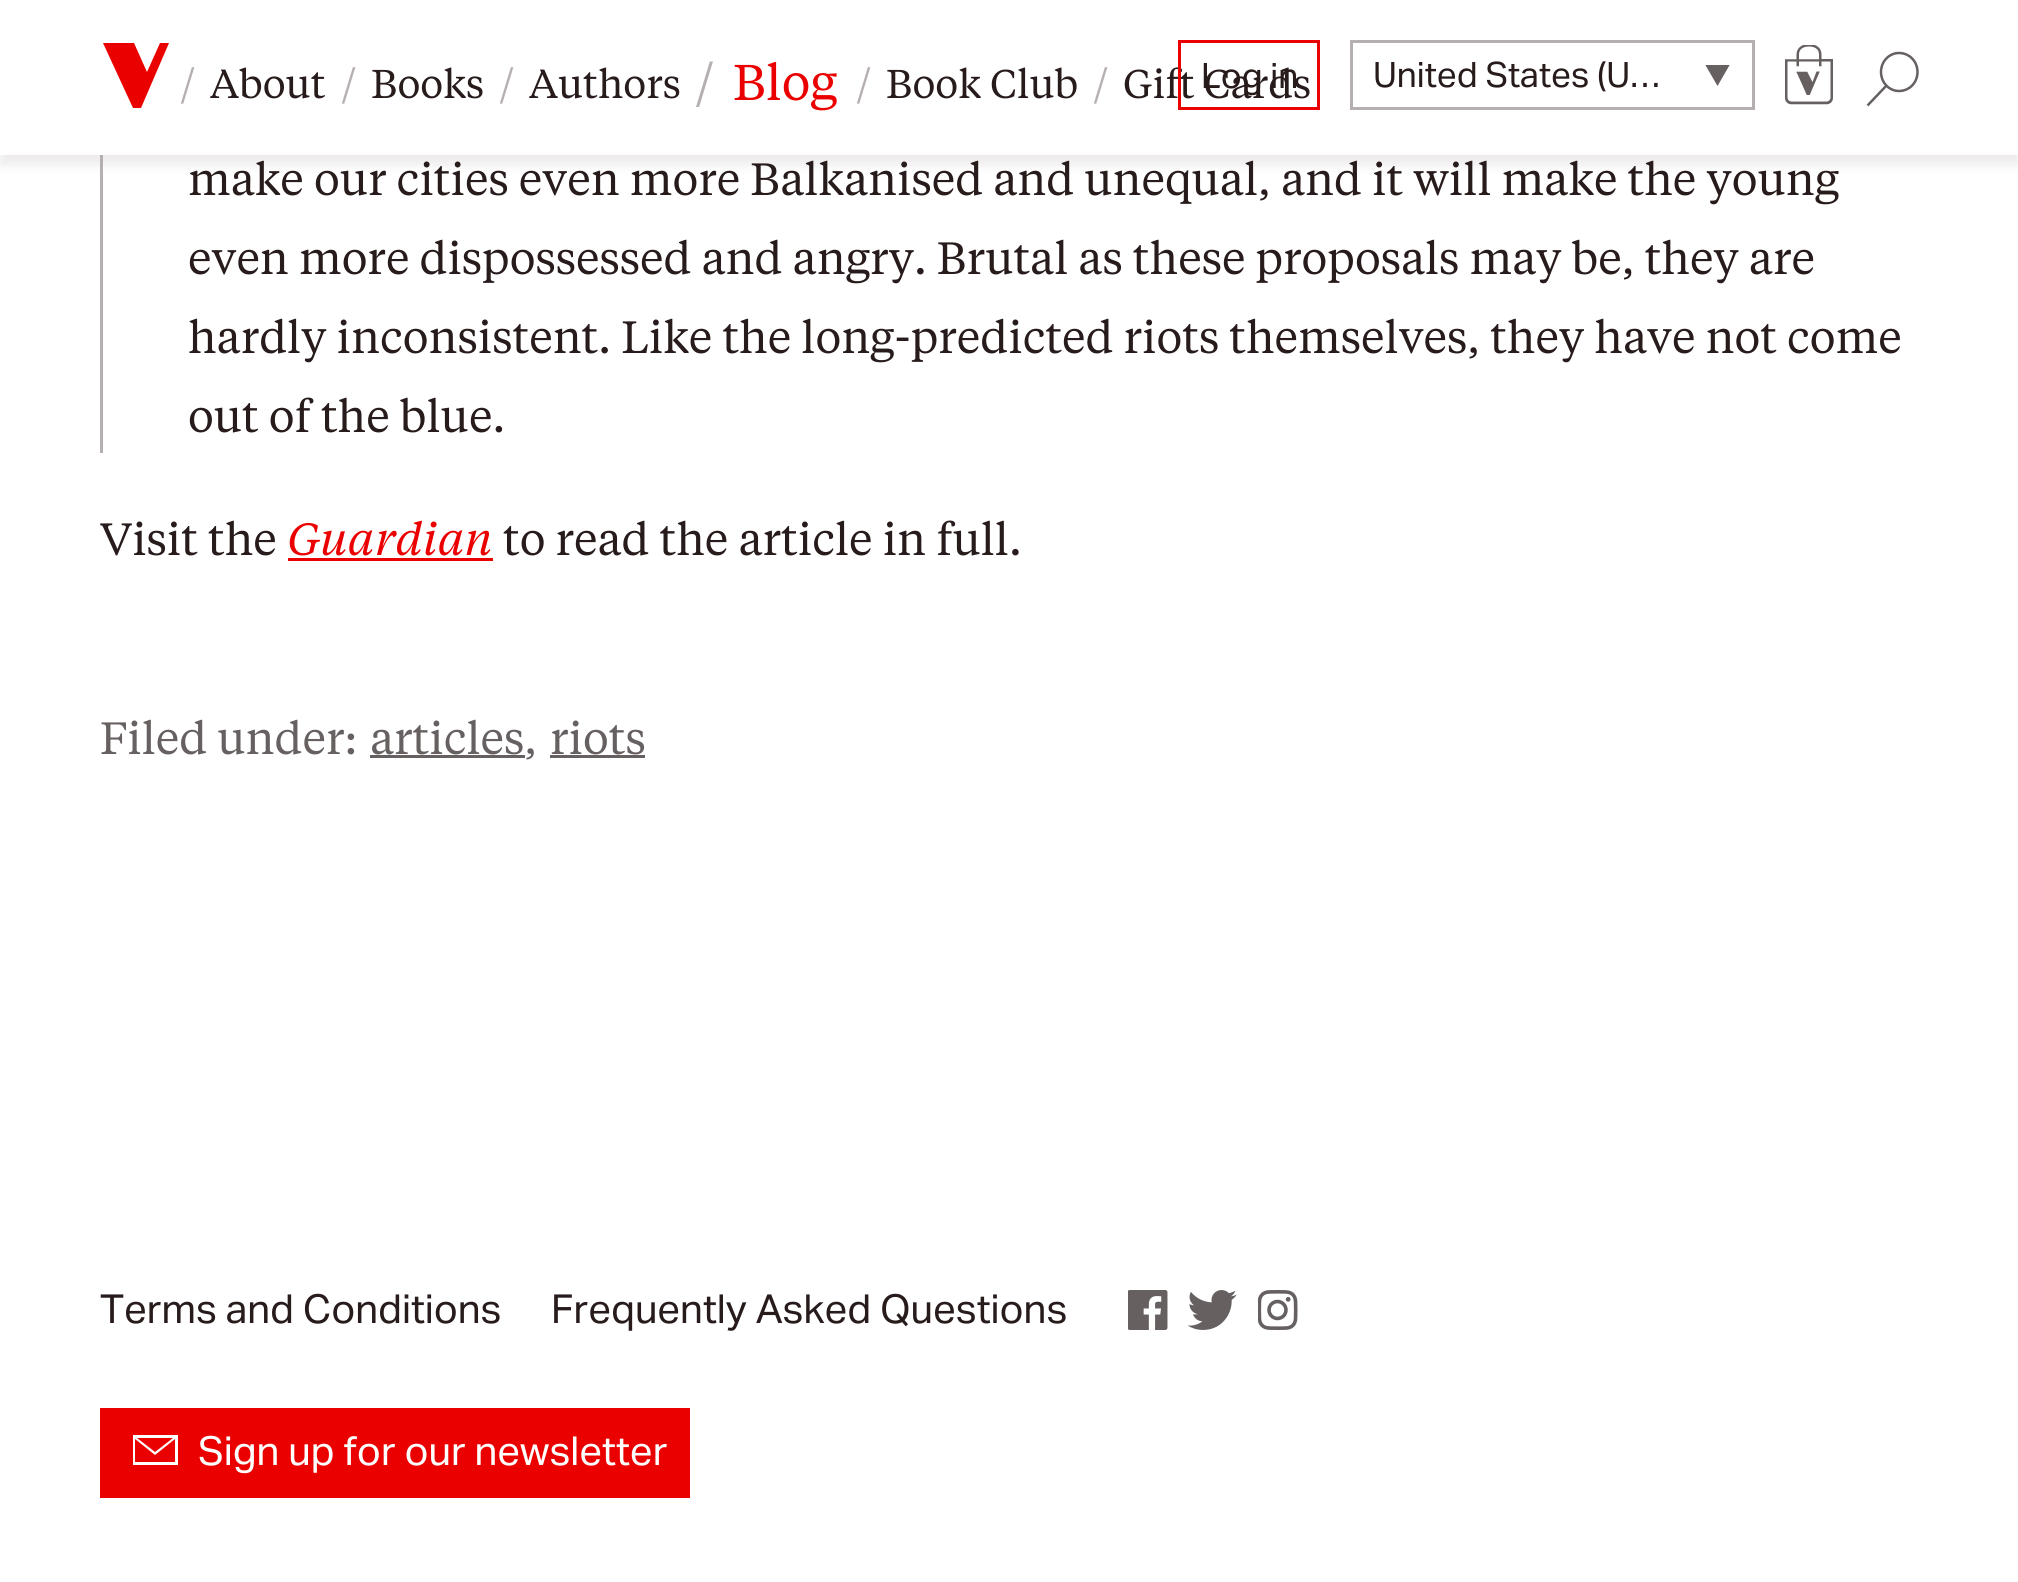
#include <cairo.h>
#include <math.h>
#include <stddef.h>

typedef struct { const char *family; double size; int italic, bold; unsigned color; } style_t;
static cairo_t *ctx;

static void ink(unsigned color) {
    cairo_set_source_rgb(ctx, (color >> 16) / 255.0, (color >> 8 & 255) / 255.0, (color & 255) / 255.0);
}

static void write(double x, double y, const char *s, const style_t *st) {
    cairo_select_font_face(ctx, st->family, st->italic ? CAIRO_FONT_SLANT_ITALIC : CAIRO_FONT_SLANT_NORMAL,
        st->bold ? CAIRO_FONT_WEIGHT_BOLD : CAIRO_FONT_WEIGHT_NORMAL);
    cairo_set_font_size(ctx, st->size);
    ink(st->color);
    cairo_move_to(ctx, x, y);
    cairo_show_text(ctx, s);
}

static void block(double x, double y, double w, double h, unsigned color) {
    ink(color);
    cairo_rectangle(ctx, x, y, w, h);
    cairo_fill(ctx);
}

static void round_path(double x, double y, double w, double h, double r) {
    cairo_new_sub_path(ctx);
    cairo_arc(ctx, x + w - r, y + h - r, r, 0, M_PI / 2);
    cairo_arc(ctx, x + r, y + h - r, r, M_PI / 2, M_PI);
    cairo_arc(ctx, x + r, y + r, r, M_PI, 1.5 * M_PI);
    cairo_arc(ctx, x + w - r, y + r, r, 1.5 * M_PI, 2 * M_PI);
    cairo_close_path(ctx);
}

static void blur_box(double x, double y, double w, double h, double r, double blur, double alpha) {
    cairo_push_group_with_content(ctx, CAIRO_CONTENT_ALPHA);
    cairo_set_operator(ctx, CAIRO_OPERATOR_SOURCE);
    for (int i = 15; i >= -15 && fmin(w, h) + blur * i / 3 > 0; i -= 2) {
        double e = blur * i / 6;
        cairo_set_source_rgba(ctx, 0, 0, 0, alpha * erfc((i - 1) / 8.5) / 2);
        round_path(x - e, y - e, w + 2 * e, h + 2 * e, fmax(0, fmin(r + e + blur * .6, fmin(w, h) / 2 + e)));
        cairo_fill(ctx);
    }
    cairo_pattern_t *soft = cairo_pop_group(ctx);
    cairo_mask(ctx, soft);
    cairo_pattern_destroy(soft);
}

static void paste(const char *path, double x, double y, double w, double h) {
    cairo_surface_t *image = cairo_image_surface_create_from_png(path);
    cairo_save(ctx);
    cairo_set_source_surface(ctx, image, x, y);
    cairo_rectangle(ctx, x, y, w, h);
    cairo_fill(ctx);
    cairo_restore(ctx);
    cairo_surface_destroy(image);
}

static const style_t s1 = {"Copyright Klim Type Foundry", 40, 0, 0, 0xb6afaf};
static const style_t s2 = {"Copyright Klim Type Foundry", 40, 0, 0, 0x271b1b};
static const style_t s3 = {"Copyright Klim Type Foundry", 50, 0, 0, 0xb6afaf};
static const style_t s4 = {"Copyright Klim Type Foundry", 50, 0, 0, 0xeb0000};
static const style_t s5 = {"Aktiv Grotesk", 35, 0, 0, 0x271b1b};
static const style_t s6 = {"Copyright Klim Type Foundry", 45, 0, 0, 0x271b1b};
static const style_t s7 = {"Copyright Klim Type Foundry", 45, 1, 0, 0xeb0000};
static const style_t s8 = {"Copyright Klim Type Foundry", 45, 0, 0, 0x666060};
static const style_t s9 = {"Aktiv Grotesk", 40, 0, 0, 0x271b1b};
static const style_t s10 = {"Aktiv Grotesk", 40, 0, 0, 0xffffff};

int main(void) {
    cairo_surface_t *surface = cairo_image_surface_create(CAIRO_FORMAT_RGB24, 2018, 1582);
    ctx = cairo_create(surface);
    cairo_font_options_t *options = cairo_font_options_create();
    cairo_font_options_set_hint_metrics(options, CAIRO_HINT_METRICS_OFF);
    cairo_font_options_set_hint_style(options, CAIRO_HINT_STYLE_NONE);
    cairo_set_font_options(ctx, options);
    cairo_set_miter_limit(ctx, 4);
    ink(0xffffff);
    cairo_paint(ctx);
    block(100, 155, 3, 298, 0xb6afaf);
    ink(0xb7aeae);
    blur_box(0, -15, 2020, 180, 0, 5, 0.25);
    block(0, 0, 2018, 155, 0xffffff);
    ink(0xeb0000);
    cairo_new_path(ctx);
    cairo_move_to(ctx, 103, 43);
    cairo_line_to(ctx, 134, 43);
    cairo_line_to(ctx, 147, 72);
    cairo_line_to(ctx, 160, 43);
    cairo_line_to(ctx, 169, 43);
    cairo_line_to(ctx, 141, 108);
    cairo_line_to(ctx, 133, 108);
    cairo_close_path(ctx);
    cairo_fill(ctx);
    write(180, 98, "/", &s1);
    write(210, 98, "About", &s2);
    write(341, 98, "/", &s1);
    write(371, 98, "Books", &s2);
    write(499, 98, "/", &s1);
    write(529, 98, "Authors", &s2);
    write(695, 100, "/", &s3);
    write(733, 100, "Blog", &s4);
    write(856, 98, "/", &s1);
    write(886, 98, "Book Club", &s2);
    write(1093, 98, "/", &s1);
    write(1123, 98, "Gift Cards", &s2);
    cairo_rectangle(ctx, 1179.5, 41.5, 139, 67);
    ink(0xeb0000);
    cairo_set_line_width(ctx, 3);
    cairo_stroke(ctx);
    write(1201, 88, "Log in", &s5);
    cairo_rectangle(ctx, 1351.5, 41.5, 402, 67);
    ink(0xb6afaf);
    cairo_stroke(ctx);
    write(1373, 87, "United States (U…", &s5);
    cairo_save(ctx);
    cairo_rectangle(ctx, 1703, 65, 30, 23);
    cairo_clip(ctx);
    ink(0x666060);
    cairo_new_path(ctx);
    cairo_move_to(ctx, 1717.5, 86);
    cairo_line_to(ctx, 1704.5, 63.5);
    cairo_line_to(ctx, 1730.5, 63.5);
    cairo_close_path(ctx);
    cairo_fill(ctx);
    cairo_restore(ctx);
    paste("pic1.png", 1785, 45, 48, 60);
    cairo_new_path(ctx);
    cairo_move_to(ctx, 1887, 85);
    cairo_line_to(ctx, 1867.5, 105.5);
    cairo_move_to(ctx, 1917.5, 72);
    cairo_curve_to(ctx, 1917.5, 82.5, 1909.5, 91, 1899, 91);
    cairo_curve_to(ctx, 1889, 91, 1881, 82.5, 1881, 72);
    cairo_curve_to(ctx, 1881, 61.5, 1889, 53, 1899, 53);
    cairo_curve_to(ctx, 1909.5, 53, 1917.5, 61.5, 1917.5, 72);
    cairo_close_path(ctx);
    ink(0x666060);
    cairo_set_line_width(ctx, 2.5);
    cairo_stroke(ctx);
    write(188, 195, "make our cities even more Balkanised and unequal, and it will make the young", &s6);
    write(188, 274, "even more dispossessed and angry. Brutal as these proposals may be, they are", &s6);
    write(188, 353, "hardly inconsistent. Like the long-predicted riots themselves, they have not come", &s6);
    write(188, 432, "out of the blue.", &s6);
    write(100, 555, "Visit the", &s6);
    write(287, 555, "Guardian", &s7);
    block(288, 558, 205, 3, 0xeb0000);
    write(503, 555, "to read the article in full.", &s6);
    write(100, 754, "Filed under:", &s8);
    block(370, 755, 155, 3, 0x666060);
    write(370, 754, "articles,", &s8);
    write(550, 754, "riots", &s8);
    block(550, 755, 95, 3, 0x666060);
    write(100, 1323, "Terms and Conditions", &s9);
    write(551, 1323, "Frequently Asked Questions", &s9);
    paste("pic2.png", 1128, 1290, 40, 40);
    paste("pic3.png", 1188, 1290, 49, 40);
    paste("pic4.png", 1258, 1290, 40, 40);
    block(100, 1408, 590, 90, 0xeb0000);
    cairo_save(ctx);
    cairo_rectangle(ctx, 133, 1435, 45, 30);
    cairo_clip(ctx);
    ink(0xffffff);
    cairo_set_fill_rule(ctx, CAIRO_FILL_RULE_EVEN_ODD);
    cairo_new_path(ctx);
    cairo_move_to(ctx, 173, 1438);
    cairo_line_to(ctx, 137, 1438);
    cairo_line_to(ctx, 155, 1452);
    cairo_close_path(ctx);
    cairo_move_to(ctx, 135, 1439);
    cairo_line_to(ctx, 135, 1462);
    cairo_line_to(ctx, 175, 1462);
    cairo_line_to(ctx, 175, 1439);
    cairo_line_to(ctx, 155, 1455);
    cairo_close_path(ctx);
    cairo_move_to(ctx, 132, 1435);
    cairo_line_to(ctx, 178, 1435);
    cairo_line_to(ctx, 178, 1465);
    cairo_line_to(ctx, 132, 1465);
    cairo_close_path(ctx);
    cairo_fill(ctx);
    cairo_restore(ctx);
    write(198, 1465, "Sign up for our newsletter", &s10);
    cairo_surface_write_to_png(surface, "screenshot.png");
    cairo_font_options_destroy(options);
    cairo_destroy(ctx);
    cairo_surface_destroy(surface);
    return 0;
}
